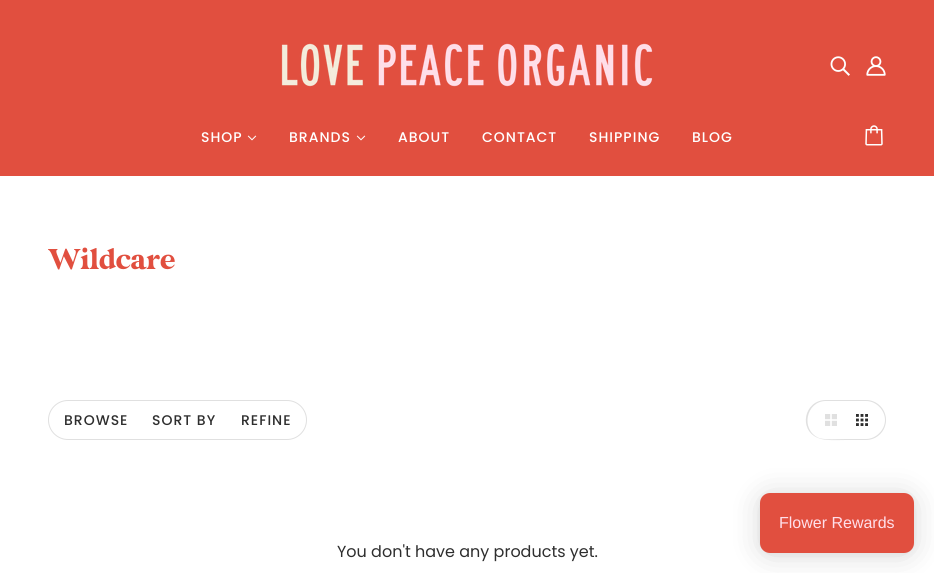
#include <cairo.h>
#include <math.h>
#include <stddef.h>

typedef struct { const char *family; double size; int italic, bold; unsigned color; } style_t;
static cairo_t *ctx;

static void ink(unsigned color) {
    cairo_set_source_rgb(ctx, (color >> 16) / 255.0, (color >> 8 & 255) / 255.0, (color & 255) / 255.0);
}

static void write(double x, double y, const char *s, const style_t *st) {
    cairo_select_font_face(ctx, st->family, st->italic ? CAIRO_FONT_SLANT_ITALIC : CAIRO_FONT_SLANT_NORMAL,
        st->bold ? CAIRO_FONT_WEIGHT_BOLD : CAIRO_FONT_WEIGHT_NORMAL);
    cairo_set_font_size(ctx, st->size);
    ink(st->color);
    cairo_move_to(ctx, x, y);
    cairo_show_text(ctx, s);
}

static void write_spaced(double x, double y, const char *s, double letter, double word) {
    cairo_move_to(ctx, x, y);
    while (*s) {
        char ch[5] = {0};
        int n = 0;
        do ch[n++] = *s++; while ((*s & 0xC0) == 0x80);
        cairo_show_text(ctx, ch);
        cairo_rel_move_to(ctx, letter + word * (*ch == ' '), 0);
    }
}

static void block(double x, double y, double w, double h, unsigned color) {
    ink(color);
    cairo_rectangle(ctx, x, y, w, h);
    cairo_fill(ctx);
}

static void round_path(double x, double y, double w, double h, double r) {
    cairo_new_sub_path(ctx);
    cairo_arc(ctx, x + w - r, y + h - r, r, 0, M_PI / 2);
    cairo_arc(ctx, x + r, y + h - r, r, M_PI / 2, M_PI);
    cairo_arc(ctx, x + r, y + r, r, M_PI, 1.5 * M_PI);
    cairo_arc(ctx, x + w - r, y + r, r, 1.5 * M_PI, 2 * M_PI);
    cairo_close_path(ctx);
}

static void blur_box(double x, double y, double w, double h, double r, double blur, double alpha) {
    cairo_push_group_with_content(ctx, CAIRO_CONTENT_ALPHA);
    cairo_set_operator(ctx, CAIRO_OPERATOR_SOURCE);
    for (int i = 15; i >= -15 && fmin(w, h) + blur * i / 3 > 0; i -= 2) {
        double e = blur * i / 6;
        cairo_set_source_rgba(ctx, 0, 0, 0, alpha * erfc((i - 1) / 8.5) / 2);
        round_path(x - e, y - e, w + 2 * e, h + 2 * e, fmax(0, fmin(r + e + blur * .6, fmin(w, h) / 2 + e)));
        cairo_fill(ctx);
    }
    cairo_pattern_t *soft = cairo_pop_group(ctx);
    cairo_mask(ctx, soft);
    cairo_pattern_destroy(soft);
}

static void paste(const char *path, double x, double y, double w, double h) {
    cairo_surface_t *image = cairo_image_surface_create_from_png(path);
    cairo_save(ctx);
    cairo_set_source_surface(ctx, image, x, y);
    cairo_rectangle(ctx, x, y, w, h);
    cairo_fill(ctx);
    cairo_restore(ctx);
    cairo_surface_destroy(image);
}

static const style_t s1 = {"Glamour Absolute", 32, 0, 0, 0xe14f3f};
static const style_t s2 = {"Poppins", 16, 0, 0, 0x2e2e2e};
static const style_t s3 = {"Liberation Sans", 16, 0, 0, 0xffdfea};

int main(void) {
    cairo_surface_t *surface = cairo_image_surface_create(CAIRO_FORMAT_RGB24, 934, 573);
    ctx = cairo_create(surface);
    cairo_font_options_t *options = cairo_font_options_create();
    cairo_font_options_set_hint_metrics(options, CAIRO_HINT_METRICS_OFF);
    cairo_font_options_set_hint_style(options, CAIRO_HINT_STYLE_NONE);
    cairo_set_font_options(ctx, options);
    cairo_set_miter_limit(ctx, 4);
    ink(0xffffff);
    cairo_paint(ctx);
    block(0, 0, 934, 176, 0xe14f3f);
    paste("pic1.png", 281, 43, 372, 44);
    paste("pic2.png", 830, 56, 20, 20);
    paste("pic3.png", 866, 56, 20, 20);
    cairo_select_font_face(ctx, "Poppins Medium", CAIRO_FONT_SLANT_NORMAL, CAIRO_FONT_WEIGHT_NORMAL);
    cairo_set_font_size(ctx, 14);
    ink(0xffffff);
    write_spaced(201, 142, "SHOP", 1, 0);
    paste("pic4.png", 247, 135, 10, 6);
    write_spaced(289, 142, "BRANDS", 1, 0);
    paste("pic4.png", 356, 135, 10, 6);
    write_spaced(398, 142, "ABOUT", 1, 0);
    write_spaced(482, 142, "CONTACT", 1, 0);
    write_spaced(589, 142, "SHIPPING", 1, 0);
    write_spaced(692, 142, "BLOG", 1, 0);
    paste("pic5.png", 865, 125, 18, 21);
    write(48, 269, "Wildcare", &s1);
    round_path(48.5, 400.5, 258, 39, 19.5);
    ink(0xe0e0e0);
    cairo_set_line_width(ctx, 1);
    cairo_stroke(ctx);
    cairo_select_font_face(ctx, "Poppins Medium", CAIRO_FONT_SLANT_NORMAL, CAIRO_FONT_WEIGHT_NORMAL);
    cairo_set_font_size(ctx, 14);
    ink(0x2e2e2e);
    write_spaced(64, 425, "BROWSE", 1, 0);
    write_spaced(152, 425, "SORT BY", 1, 0);
    write_spaced(241, 425, "REFINE", 1, 0);
    ink(0xe0e0e0);
    cairo_set_fill_rule(ctx, CAIRO_FILL_RULE_EVEN_ODD);
    cairo_new_path(ctx);
    cairo_move_to(ctx, 826, 400);
    cairo_line_to(ctx, 846, 400);
    cairo_line_to(ctx, 846, 440);
    cairo_curve_to(ctx, 838, 440, 825, 441, 818, 438);
    cairo_curve_to(ctx, 798, 430, 804, 400, 826, 400);
    cairo_close_path(ctx);
    cairo_move_to(ctx, 826, 401);
    cairo_line_to(ctx, 846, 401);
    cairo_line_to(ctx, 846, 439);
    cairo_curve_to(ctx, 838, 439, 825, 440, 819, 438);
    cairo_curve_to(ctx, 800, 430, 806, 401, 826, 401);
    cairo_close_path(ctx);
    cairo_fill(ctx);
    paste("pic6.png", 825, 414, 12, 12);
    cairo_new_path(ctx);
    cairo_move_to(ctx, 846, 400);
    cairo_line_to(ctx, 866, 400);
    cairo_curve_to(ctx, 877, 400, 886, 409, 886, 420);
    cairo_curve_to(ctx, 886, 431, 877, 440, 866, 440);
    cairo_line_to(ctx, 846, 440);
    cairo_close_path(ctx);
    cairo_move_to(ctx, 846, 401);
    cairo_line_to(ctx, 866, 401);
    cairo_curve_to(ctx, 876, 401, 885, 410, 885, 420);
    cairo_curve_to(ctx, 885, 430, 876, 439, 866, 439);
    cairo_line_to(ctx, 846, 439);
    cairo_close_path(ctx);
    cairo_fill(ctx);
    paste("pic7.png", 856, 414, 12, 12);
    write(337, 557, "You don't have any products yet.", &s2);
    ink(0x000000);
    blur_box(760, 495, 154, 60, 10, 15, 0.15);
    blur_box(760, 494, 154, 60, 10, 3, 0.05);
    ink(0xe14f3f);
    round_path(760, 493, 154, 60, 10);
    cairo_fill(ctx);
    write(779, 528, "Flower Rewards", &s3);
    cairo_surface_write_to_png(surface, "screenshot.png");
    cairo_font_options_destroy(options);
    cairo_destroy(ctx);
    cairo_surface_destroy(surface);
    return 0;
}
